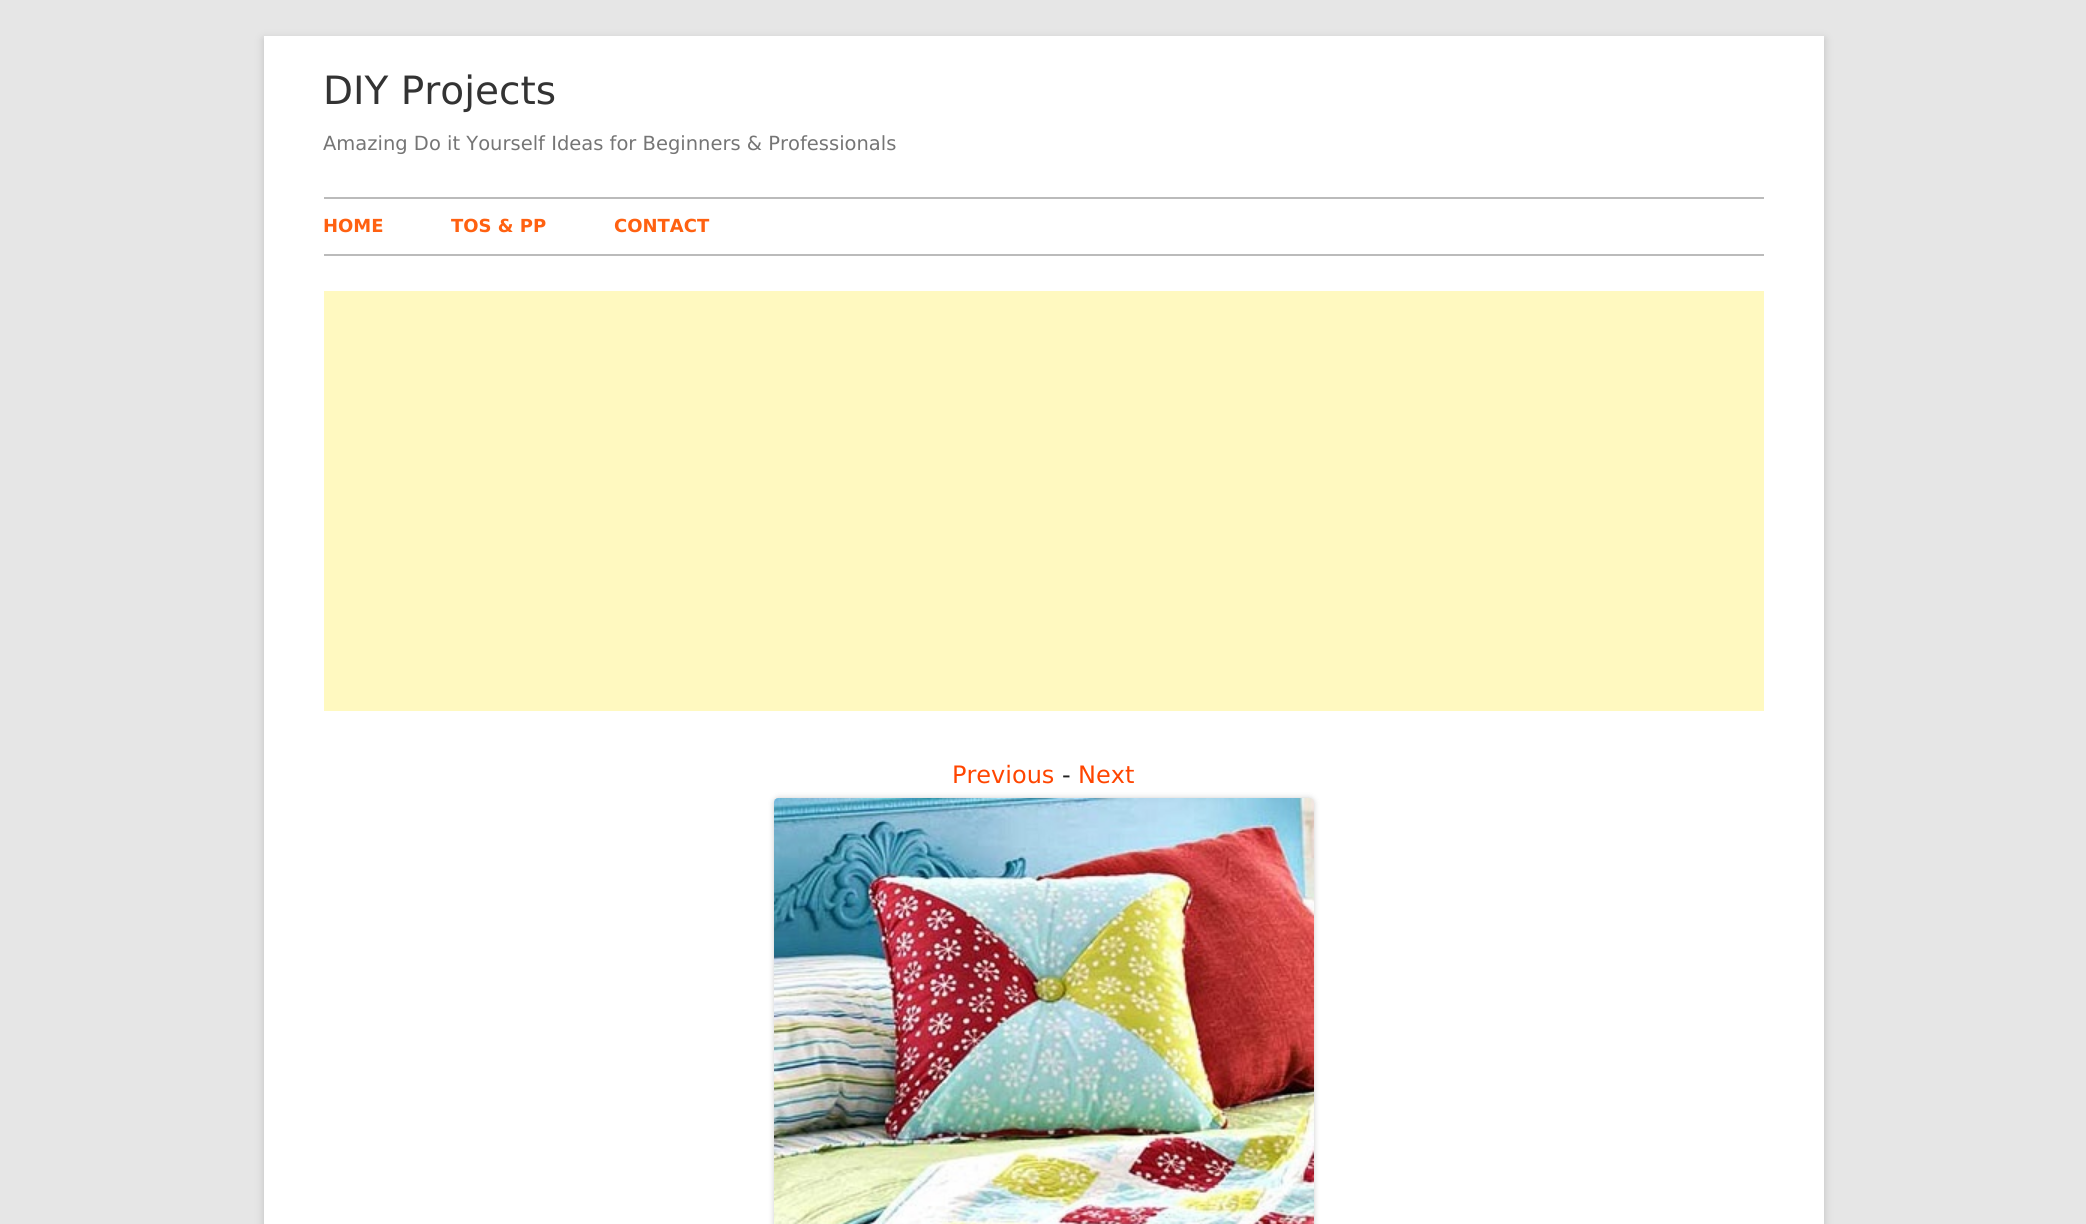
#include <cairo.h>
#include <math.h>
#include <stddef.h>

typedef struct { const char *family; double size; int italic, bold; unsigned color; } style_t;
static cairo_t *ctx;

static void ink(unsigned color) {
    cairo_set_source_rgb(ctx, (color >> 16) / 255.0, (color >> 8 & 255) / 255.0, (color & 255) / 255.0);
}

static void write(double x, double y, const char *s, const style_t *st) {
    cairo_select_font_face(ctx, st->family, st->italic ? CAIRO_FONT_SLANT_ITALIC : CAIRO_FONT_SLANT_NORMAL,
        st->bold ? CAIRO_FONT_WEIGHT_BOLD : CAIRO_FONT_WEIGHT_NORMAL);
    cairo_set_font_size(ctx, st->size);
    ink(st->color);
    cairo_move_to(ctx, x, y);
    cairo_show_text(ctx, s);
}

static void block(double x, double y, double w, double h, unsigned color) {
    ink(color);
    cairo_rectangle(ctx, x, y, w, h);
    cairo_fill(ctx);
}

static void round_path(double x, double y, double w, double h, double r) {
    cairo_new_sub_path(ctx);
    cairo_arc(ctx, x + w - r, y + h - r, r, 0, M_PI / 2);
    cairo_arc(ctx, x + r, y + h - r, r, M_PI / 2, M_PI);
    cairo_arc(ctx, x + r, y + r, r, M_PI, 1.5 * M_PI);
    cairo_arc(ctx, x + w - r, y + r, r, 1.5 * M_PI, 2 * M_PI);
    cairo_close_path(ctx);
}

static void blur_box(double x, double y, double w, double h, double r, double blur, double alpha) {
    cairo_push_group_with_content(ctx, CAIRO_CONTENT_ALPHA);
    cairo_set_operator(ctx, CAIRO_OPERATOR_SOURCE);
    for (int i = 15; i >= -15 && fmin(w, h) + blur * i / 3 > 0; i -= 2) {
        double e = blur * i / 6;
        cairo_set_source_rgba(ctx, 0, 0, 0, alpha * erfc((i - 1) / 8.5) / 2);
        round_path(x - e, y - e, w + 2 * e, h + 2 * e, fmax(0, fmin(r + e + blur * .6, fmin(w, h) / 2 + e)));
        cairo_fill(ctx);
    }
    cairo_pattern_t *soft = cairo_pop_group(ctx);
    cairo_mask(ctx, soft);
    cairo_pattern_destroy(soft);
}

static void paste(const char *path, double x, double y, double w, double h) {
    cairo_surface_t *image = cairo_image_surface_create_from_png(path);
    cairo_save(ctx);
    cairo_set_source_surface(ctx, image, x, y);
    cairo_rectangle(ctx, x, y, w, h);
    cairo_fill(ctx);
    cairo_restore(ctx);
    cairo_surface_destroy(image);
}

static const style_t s1 = {"DejaVu Sans", 39, 0, 0, 0x333333};
static const style_t s2 = {"DejaVu Sans", 19.5, 0, 0, 0x757575};
static const style_t s3 = {"DejaVu Sans", 18, 0, 1, 0xff6111};
static const style_t s4 = {"DejaVu Sans", 24, 0, 0, 0xff4500};
static const style_t s5 = {"DejaVu Sans", 24, 0, 0, 0x222222};

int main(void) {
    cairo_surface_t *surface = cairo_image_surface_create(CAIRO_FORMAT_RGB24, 2086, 1224);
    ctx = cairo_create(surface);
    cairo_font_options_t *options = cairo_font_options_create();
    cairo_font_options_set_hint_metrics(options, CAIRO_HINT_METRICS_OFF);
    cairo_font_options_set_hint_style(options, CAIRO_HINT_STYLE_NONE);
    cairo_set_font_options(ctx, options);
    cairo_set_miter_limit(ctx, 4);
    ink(0xe6e6e6);
    cairo_paint(ctx);
    ink(0x646464);
    blur_box(264, 39, 1560, 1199, 0, 4.5, 0.3);
    block(264, 36, 1560, 1188, 0xffffff);
    write(323, 104, "DIY Projects", &s1);
    write(323, 150, "Amazing Do it Yourself Ideas for Beginners & Professionals", &s2);
    block(324, 197, 1440, 2, 0xbbbbbb);
    block(324, 254, 1440, 2, 0xbbbbbb);
    write(323, 232, "HOME", &s3);
    write(451, 232, "TOS & PP", &s3);
    write(614, 232, "CONTACT", &s3);
    block(324, 291, 1440, 420, 0xfff9c0);
    write(952, 783, "Previous", &s4);
    write(1062, 783, "-", &s5);
    write(1078, 783, "Next", &s4);
    ink(0x000000);
    blur_box(774, 798, 540, 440, 5, 3, 0.2);
    paste("pic1.png", 774, 798, 540, 426);
    cairo_surface_write_to_png(surface, "screenshot.png");
    cairo_font_options_destroy(options);
    cairo_destroy(ctx);
    cairo_surface_destroy(surface);
    return 0;
}
